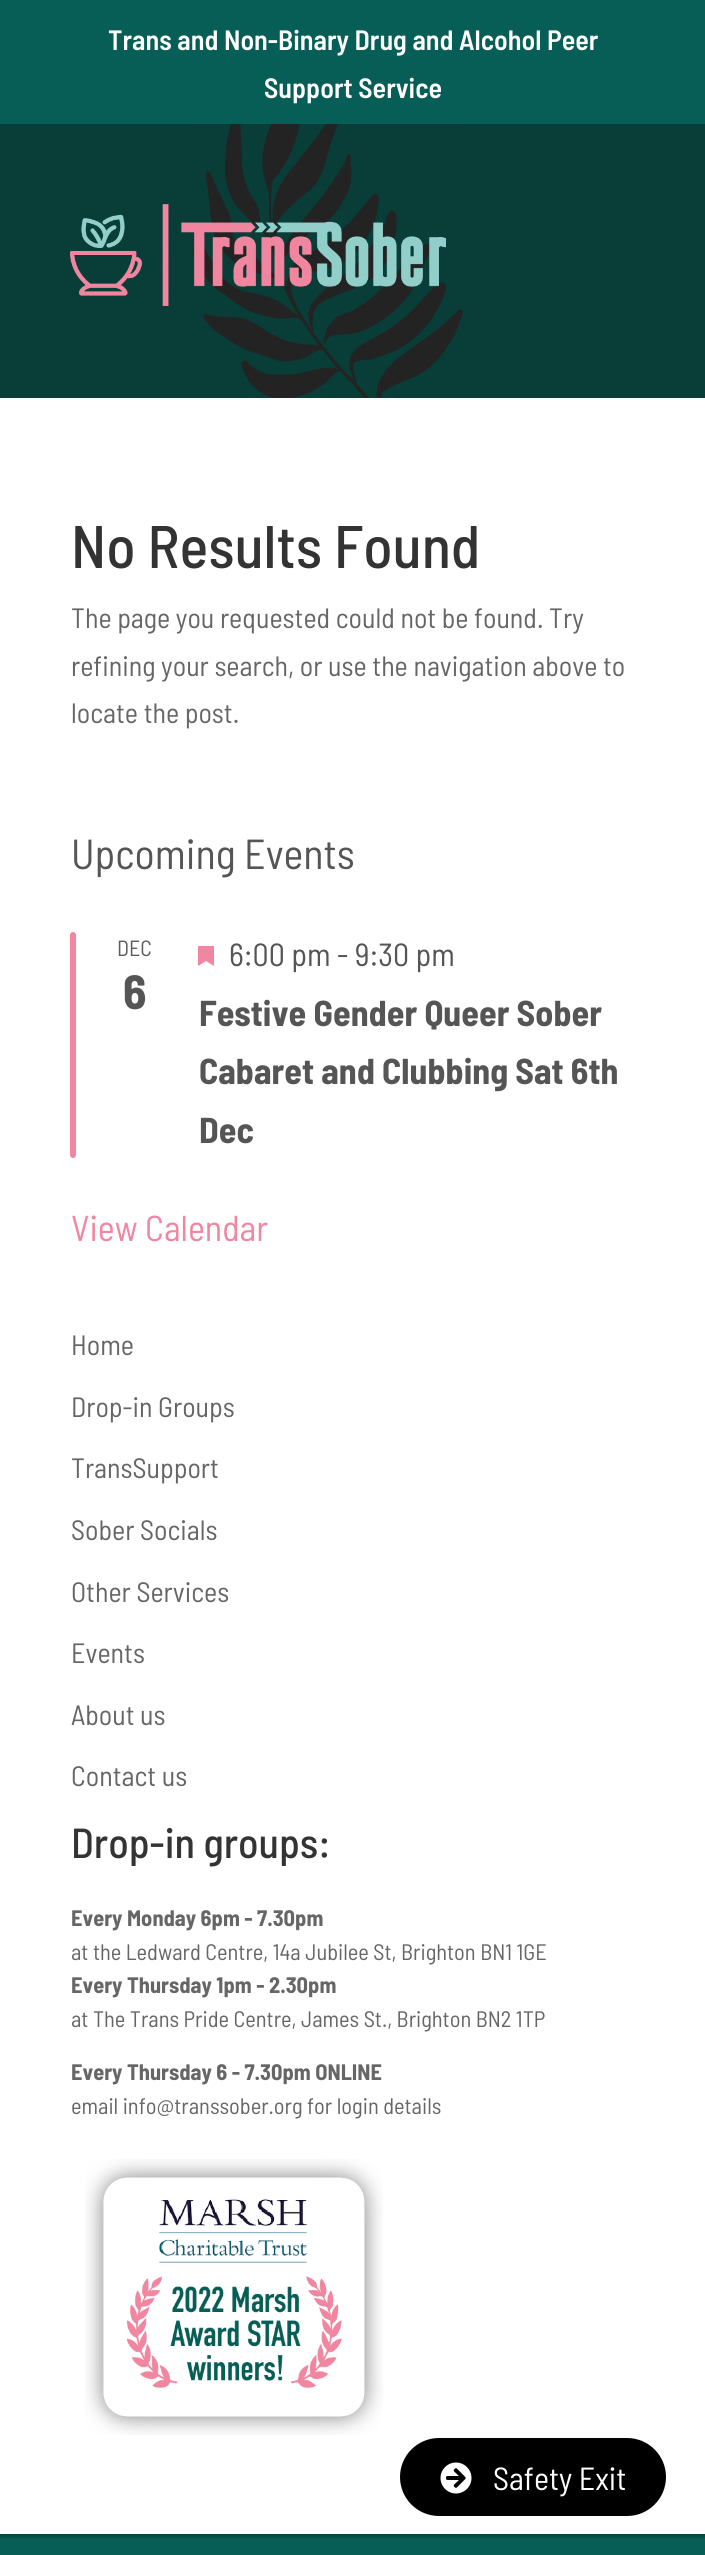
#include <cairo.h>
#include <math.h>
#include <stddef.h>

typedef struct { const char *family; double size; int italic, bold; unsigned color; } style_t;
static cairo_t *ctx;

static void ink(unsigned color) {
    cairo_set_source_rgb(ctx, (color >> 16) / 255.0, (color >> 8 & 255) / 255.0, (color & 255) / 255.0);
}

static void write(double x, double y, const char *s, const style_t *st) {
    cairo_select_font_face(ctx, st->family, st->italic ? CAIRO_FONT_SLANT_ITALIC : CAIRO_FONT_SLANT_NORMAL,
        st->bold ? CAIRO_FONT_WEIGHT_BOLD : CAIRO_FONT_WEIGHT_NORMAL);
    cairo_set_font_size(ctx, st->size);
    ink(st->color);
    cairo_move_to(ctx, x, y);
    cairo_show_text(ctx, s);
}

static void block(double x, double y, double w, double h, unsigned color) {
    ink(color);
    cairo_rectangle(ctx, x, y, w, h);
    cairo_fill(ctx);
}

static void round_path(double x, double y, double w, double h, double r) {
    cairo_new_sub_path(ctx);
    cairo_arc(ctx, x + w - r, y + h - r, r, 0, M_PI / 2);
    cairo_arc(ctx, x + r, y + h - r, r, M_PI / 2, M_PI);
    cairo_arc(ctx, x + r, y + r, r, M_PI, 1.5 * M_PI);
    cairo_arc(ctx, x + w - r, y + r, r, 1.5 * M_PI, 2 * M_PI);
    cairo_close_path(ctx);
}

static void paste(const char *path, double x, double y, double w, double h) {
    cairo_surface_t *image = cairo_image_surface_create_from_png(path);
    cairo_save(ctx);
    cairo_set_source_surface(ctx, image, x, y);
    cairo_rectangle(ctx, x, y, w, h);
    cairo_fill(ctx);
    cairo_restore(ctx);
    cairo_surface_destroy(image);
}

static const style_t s1 = {"Barlow Semi Condensed SemiBold", 28, 0, 0, 0xffffff};
static const style_t s2 = {"Barlow Semi Condensed Medium", 60, 0, 0, 0x333333};
static const style_t s3 = {"Barlow Semi Condensed", 28, 0, 0, 0x666666};
static const style_t s4 = {"Barlow Semi Condensed", 42, 0, 0, 0x555555};
static const style_t s5 = {"Barlow Semi Condensed", 22, 0, 0, 0x5d5d5d};
static const style_t s6 = {"Barlow Semi Condensed", 48, 0, 1, 0x555555};
static const style_t s7 = {"Barlow Semi Condensed", 32, 0, 0, 0x555555};
static const style_t s8 = {"Barlow Semi Condensed", 36, 0, 1, 0x555555};
static const style_t s9 = {"Barlow Semi Condensed", 36, 0, 0, 0xf0869f};
static const style_t s10 = {"Barlow Semi Condensed Medium", 42, 0, 0, 0x333333};
static const style_t s11 = {"Barlow Semi Condensed", 22.4, 0, 1, 0x666666};
static const style_t s12 = {"Barlow Semi Condensed", 22.4, 0, 0, 0x666666};
static const style_t s13 = {"Barlow Semi Condensed", 32, 0, 0, 0xffffff};

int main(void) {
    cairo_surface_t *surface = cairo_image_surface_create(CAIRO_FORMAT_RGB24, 705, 2555);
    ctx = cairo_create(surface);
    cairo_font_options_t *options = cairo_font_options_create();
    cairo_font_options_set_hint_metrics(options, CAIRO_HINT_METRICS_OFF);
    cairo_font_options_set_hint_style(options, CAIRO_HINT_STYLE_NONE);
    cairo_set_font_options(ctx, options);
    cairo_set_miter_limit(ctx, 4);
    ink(0xffffff);
    cairo_paint(ctx);
    block(0, 0, 705, 124, 0x075e56);
    write(108, 50, "Trans and Non-Binary Drug and Alcohol Peer", &s1);
    write(264, 98, "Support Service", &s1);
    block(0, 124, 705, 274, 0x093d38);
    paste("pic1.png", 193, 124, 270, 274);
    paste("pic2.png", 70, 204, 376, 102);
    write(71, 568, "No Results Found", &s2);
    write(71, 628, "The page you requested could not be found. Try", &s3);
    write(71, 676, "refining your search, or use the navigation above to", &s3);
    write(71, 723, "locate the post.", &s3);
    write(71, 869, "Upcoming Events", &s4);
    ink(0xf0869f);
    round_path(70, 932, 6, 226, 3);
    cairo_fill(ctx);
    write(117, 956, "DEC", &s5);
    write(123, 1009, "6", &s6);
    ink(0xf0869f);
    cairo_set_fill_rule(ctx, CAIRO_FILL_RULE_EVEN_ODD);
    cairo_new_path(ctx);
    cairo_move_to(ctx, 198, 946);
    cairo_line_to(ctx, 214, 946);
    cairo_line_to(ctx, 214, 966);
    cairo_line_to(ctx, 206, 961);
    cairo_line_to(ctx, 198, 966);
    cairo_close_path(ctx);
    cairo_fill(ctx);
    write(229, 966, "6:00 pm - 9:30 pm", &s7);
    write(199, 1026, "Festive Gender Queer Sober", &s8);
    write(199, 1084, "Cabaret and Clubbing Sat 6th", &s8);
    write(199, 1143, "Dec", &s8);
    write(71, 1241, "View Calendar", &s9);
    write(71, 1355, "Home", &s3);
    write(71, 1417, "Drop-in Groups", &s3);
    write(71, 1478, "TransSupport", &s3);
    write(71, 1540, "Sober Socials", &s3);
    write(71, 1602, "Other Services", &s3);
    write(71, 1663, "Events", &s3);
    write(71, 1725, "About us", &s3);
    write(71, 1786, "Contact us", &s3);
    write(71, 1858, "Drop-in groups:", &s10);
    write(71, 1926, "Every Monday 6pm - 7.30pm", &s11);
    write(71, 1960, "at the Ledward Centre, 14a Jubilee St, Brighton BN1 1GE", &s12);
    write(71, 1993, "Every Thursday 1pm - 2.30pm", &s11);
    write(71, 2027, "at The Trans Pride Centre, James St., Brighton BN2 1TP", &s12);
    write(71, 2080, "Every Thursday 6 - 7.30pm ONLINE", &s11);
    write(71, 2114, "email info@transsober.org for login details", &s12);
    paste("pic3.png", 85, 2159, 298, 276);
    block(0, 2534, 705, 5, 0x093d38);
    paste("pic4.png", 0, 2534, 705, 21);
    ink(0x000000);
    round_path(400, 2438, 266, 78, 39);
    cairo_fill(ctx);
    paste("pic5.png", 440, 2462, 32, 32);
    write(493, 2490, "Safety Exit", &s13);
    cairo_surface_write_to_png(surface, "screenshot.png");
    cairo_font_options_destroy(options);
    cairo_destroy(ctx);
    cairo_surface_destroy(surface);
    return 0;
}
